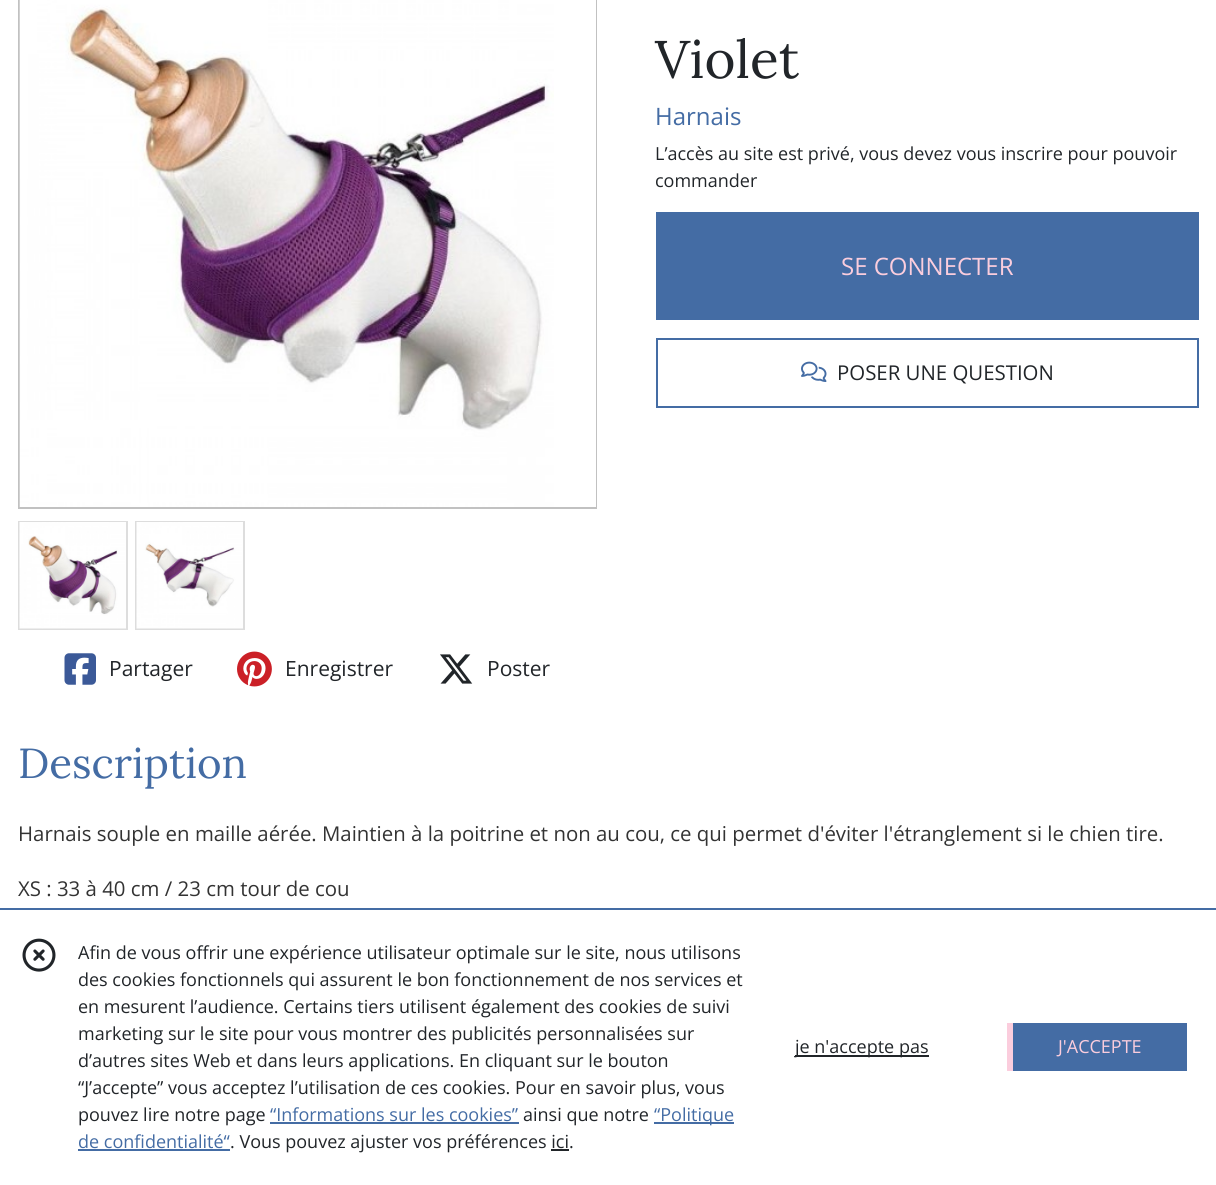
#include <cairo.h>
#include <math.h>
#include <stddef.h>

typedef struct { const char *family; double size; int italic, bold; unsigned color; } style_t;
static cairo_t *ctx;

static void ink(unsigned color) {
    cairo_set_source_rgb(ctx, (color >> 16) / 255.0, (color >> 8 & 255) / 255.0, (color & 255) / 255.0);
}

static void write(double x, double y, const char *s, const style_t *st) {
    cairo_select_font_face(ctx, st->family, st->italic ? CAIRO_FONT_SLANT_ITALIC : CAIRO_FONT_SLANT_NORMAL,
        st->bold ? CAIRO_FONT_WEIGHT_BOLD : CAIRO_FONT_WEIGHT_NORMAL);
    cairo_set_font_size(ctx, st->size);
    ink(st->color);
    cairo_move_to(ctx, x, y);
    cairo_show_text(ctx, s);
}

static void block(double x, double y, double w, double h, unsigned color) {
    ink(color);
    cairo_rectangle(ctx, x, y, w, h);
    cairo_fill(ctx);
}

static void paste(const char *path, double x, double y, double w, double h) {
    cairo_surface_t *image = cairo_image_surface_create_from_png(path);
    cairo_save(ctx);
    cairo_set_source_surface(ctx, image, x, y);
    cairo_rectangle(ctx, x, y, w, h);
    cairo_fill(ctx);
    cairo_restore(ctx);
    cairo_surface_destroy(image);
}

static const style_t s1 = {"Lora", 53, 0, 0, 0x212529};
static const style_t s2 = {"Open Sans", 24, 0, 0, 0x446ca4};
static const style_t s3 = {"Open Sans", 18, 0, 0, 0x212529};
static const style_t s4 = {"Open Sans", 24, 0, 0, 0xfbcddd};
static const style_t s5 = {"Open Sans", 20.4, 0, 0, 0x212529};
static const style_t s6 = {"Open Sans", 21, 0, 0, 0x212529};
static const style_t s7 = {"Lora", 42, 0, 0, 0x446ca4};
static const style_t s8 = {"Open Sans", 20.4, 0, 0, 0x333333};
static const style_t s9 = {"Open Sans", 18, 0, 0, 0x446ca4};
static const style_t s10 = {"Open Sans", 18, 0, 0, 0xfbcddd};

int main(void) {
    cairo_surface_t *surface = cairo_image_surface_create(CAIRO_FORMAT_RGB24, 1216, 1185);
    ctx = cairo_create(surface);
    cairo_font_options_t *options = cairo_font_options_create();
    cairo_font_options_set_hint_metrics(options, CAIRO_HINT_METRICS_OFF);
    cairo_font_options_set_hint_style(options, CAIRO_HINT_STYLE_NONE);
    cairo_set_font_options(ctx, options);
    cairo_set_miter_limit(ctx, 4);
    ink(0xffffff);
    cairo_paint(ctx);
    write(655, 78, "Violet", &s1);
    write(655, 125, "Harnais", &s2);
    write(655, 160, "L’accès au site est privé, vous devez vous inscrire pour pouvoir", &s3);
    write(655, 187, "commander", &s3);
    block(656, 212, 543, 108, 0x446ca4);
    write(841, 275, "SE CONNECTER", &s4);
    cairo_rectangle(ctx, 657, 339, 541, 68);
    ink(0x446ca4);
    cairo_stroke(ctx);
    paste("pic1.png", 801, 361, 26, 21);
    write(837, 380, "POSER UNE QUESTION", &s5);
    cairo_rectangle(ctx, 19, -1, 577, 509);
    ink(0xc1c1c1);
    cairo_stroke(ctx);
    block(595, 0, 1, 507, 0xffffff);
    paste("pic2.png", 19, 0, 535, 507);
    cairo_rectangle(ctx, 19, 522, 108, 107);
    ink(0xdddddd);
    cairo_stroke(ctx);
    paste("pic3.png", 19, 522, 107, 107);
    cairo_rectangle(ctx, 136, 522, 108, 107);
    cairo_stroke(ctx);
    paste("pic4.png", 136, 522, 107, 107);
    paste("pic5.png", 64, 653, 32, 32);
    write(109, 676, "Partager", &s6);
    paste("pic6.png", 237, 651, 35, 36);
    write(285, 676, "Enregistrer", &s6);
    paste("pic7.png", 440, 654, 33, 30);
    write(487, 676, "Poster", &s6);
    write(18, 778, "Description", &s7);
    write(18, 841, "Harnais souple en maille aérée. Maintien à la poitrine et non au cou, ce qui permet d'éviter l'étranglement si le chien tire.", &s8);
    write(18, 896, "XS : 33 à 40 cm / 23 cm tour de cou", &s8);
    block(0, 908, 1216, 2, 0x446ca4);
    paste("pic8.png", 22, 938, 34, 34);
    write(78, 959, "Afin de vous offrir une expérience utilisateur optimale sur le site, nous utilisons", &s3);
    write(78, 986, "des cookies fonctionnels qui assurent le bon fonctionnement de nos services et", &s3);
    write(78, 1013, "en mesurent l’audience. Certains tiers utilisent également des cookies de suivi", &s3);
    write(78, 1040, "marketing sur le site pour vous montrer des publicités personnalisées sur", &s3);
    write(78, 1067, "d’autres sites Web et dans leurs applications. En cliquant sur le bouton", &s3);
    write(78, 1094, "“J’accepte” vous acceptez l’utilisation de ces cookies. Pour en savoir plus, vous", &s3);
    write(78, 1121, "pouvez lire notre page", &s3);
    write(270, 1121, "“Informations sur les cookies”", &s9);
    block(270, 1122, 249, 2, 0x446ca4);
    write(523, 1121, "ainsi que notre", &s3);
    block(654, 1122, 80, 2, 0x446ca4);
    write(654, 1121, "“Politique", &s9);
    write(78, 1148, "de confidentialité“", &s9);
    block(78, 1149, 152, 2, 0x446ca4);
    write(230, 1148, ". Vous pouvez ajuster vos préférences ici.", &s3);
    block(551, 1149, 18, 2, 0x212529);
    block(795, 1055, 134, 2, 0x212529);
    write(795, 1053, "je n'accepte pas", &s3);
    block(1013, 1023, 174, 48, 0x446ca4);
    block(1007, 1023, 6, 48, 0xfbcddd);
    write(1058, 1053, "J'ACCEPTE", &s10);
    cairo_surface_write_to_png(surface, "screenshot.png");
    cairo_font_options_destroy(options);
    cairo_destroy(ctx);
    cairo_surface_destroy(surface);
    return 0;
}
